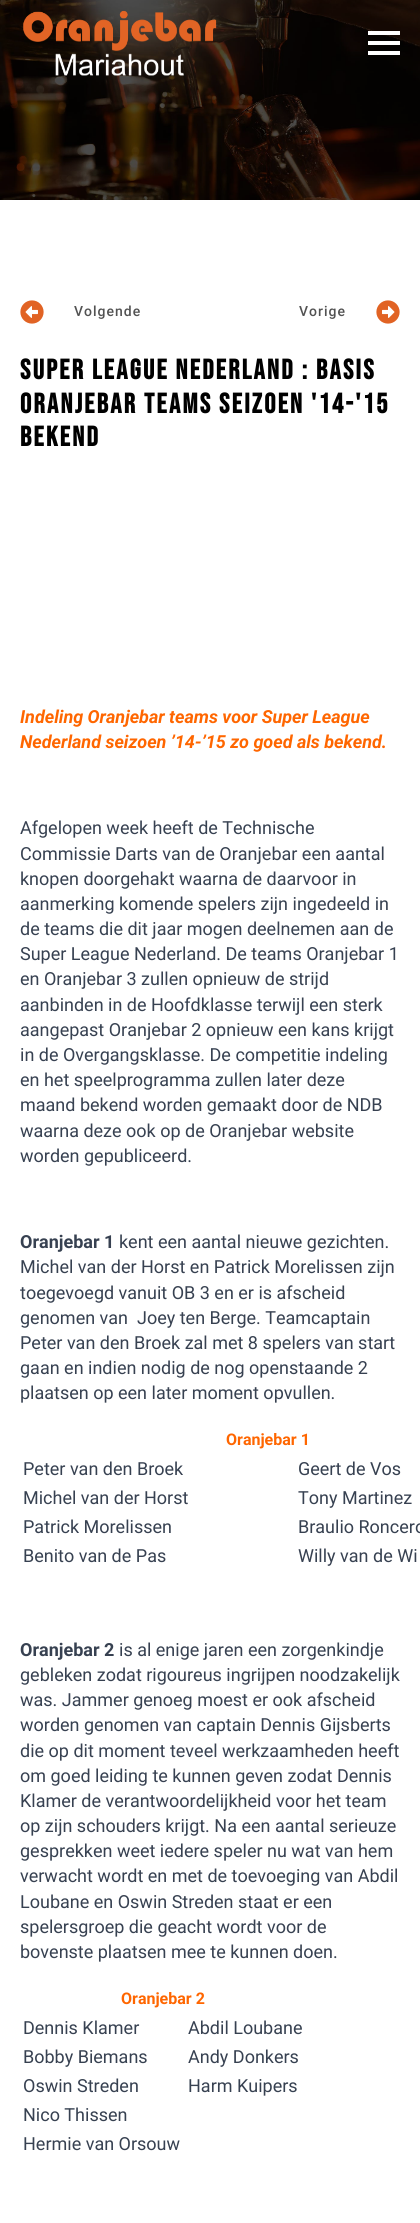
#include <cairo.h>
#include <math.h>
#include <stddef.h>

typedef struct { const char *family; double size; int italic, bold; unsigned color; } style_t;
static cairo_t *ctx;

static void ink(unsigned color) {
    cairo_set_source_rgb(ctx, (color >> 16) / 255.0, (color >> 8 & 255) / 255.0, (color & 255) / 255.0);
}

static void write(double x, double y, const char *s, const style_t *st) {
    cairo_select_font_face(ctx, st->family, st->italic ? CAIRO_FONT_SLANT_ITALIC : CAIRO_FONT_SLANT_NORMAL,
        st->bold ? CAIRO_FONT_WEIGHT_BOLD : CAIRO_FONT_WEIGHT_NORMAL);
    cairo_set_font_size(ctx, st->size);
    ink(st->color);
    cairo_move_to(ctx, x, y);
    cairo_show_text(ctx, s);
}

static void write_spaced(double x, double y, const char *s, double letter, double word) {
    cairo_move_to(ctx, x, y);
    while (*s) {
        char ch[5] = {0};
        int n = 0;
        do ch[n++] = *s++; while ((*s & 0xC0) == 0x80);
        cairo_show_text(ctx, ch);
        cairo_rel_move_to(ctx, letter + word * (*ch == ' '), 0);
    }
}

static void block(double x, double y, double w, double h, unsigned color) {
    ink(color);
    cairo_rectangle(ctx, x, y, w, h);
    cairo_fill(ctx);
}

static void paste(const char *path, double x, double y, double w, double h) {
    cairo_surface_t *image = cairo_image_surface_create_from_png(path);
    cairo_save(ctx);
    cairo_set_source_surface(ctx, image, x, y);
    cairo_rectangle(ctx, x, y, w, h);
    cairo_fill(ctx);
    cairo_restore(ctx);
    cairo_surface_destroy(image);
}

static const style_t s1 = {"Roboto", 18, 1, 1, 0xff6600};
static const style_t s2 = {"Roboto", 18, 0, 0, 0x374151};
static const style_t s3 = {"Roboto", 18, 0, 1, 0x374151};
static const style_t s4 = {"Roboto", 16, 0, 1, 0xff6600};

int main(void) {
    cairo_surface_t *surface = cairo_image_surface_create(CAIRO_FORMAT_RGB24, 420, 2223);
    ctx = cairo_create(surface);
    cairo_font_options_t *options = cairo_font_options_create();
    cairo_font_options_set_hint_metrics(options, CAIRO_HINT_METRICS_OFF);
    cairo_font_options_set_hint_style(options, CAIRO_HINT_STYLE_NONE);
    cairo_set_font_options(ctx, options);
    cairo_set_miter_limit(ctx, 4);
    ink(0xffffff);
    cairo_paint(ctx);
    paste("pic1.png", 0, 0, 420, 200);
    paste("pic2.png", 23, 10, 194, 66);
    block(368, 41, 32, 4, 0xffffff);
    block(368, 31, 32, 4, 0xffffff);
    block(368, 51, 32, 4, 0xffffff);
    paste("pic3.png", 20, 300, 24, 24);
    cairo_select_font_face(ctx, "Roboto Medium", CAIRO_FONT_SLANT_NORMAL, CAIRO_FONT_WEIGHT_NORMAL);
    cairo_set_font_size(ctx, 14);
    ink(0x525252);
    write_spaced(74, 316, "Volgende", 1, 0);
    write_spaced(299, 316, "Vorige", 1, 0);
    paste("pic4.png", 376, 300, 24, 24);
    cairo_select_font_face(ctx, "Bebas Neue", CAIRO_FONT_SLANT_NORMAL, CAIRO_FONT_WEIGHT_BOLD);
    cairo_set_font_size(ctx, 28);
    ink(0x000000);
    write_spaced(20, 379, "SUPER LEAGUE NEDERLAND : BASIS", 2.25, 0);
    write_spaced(20, 413, "ORANJEBAR TEAMS SEIZOEN '14-'15", 2.25, 0);
    write_spaced(20, 446, "BEKEND", 2.25, 0);
    write(20, 723, "Indeling Oranjebar teams voor Super League", &s1);
    write(20, 748, "Nederland seizoen ’14-’15 zo goed als bekend.", &s1);
    write(20, 834, "Afgelopen week heeft de Technische", &s2);
    write(20, 860, "Commissie Darts van de Oranjebar een aantal", &s2);
    write(20, 885, "knopen doorgehakt waarna de daarvoor in", &s2);
    write(20, 910, "aanmerking komende spelers zijn ingedeeld in", &s2);
    write(20, 935, "de teams die dit jaar mogen deelnemen aan de", &s2);
    write(20, 960, "Super League Nederland. De teams Oranjebar 1", &s2);
    write(20, 985, "en Oranjebar 3 zullen opnieuw de strijd", &s2);
    write(20, 1011, "aanbinden in de Hoofdklasse terwijl een sterk", &s2);
    write(20, 1036, "aangepast Oranjebar 2 opnieuw een kans krijgt", &s2);
    write(20, 1061, "in de Overgangsklasse. De competitie indeling", &s2);
    write(20, 1086, "en het speelprogramma zullen later deze", &s2);
    write(20, 1111, "maand bekend worden gemaakt door de NDB", &s2);
    write(20, 1137, "waarna deze ook op de Oranjebar website", &s2);
    write(20, 1162, "worden gepubliceerd.", &s2);
    write(20, 1248, "Oranjebar 1", &s3);
    write(119, 1248, "kent een aantal nieuwe gezichten.", &s2);
    write(20, 1273, "Michel van der Horst en Patrick Morelissen zijn", &s2);
    write(20, 1299, "toegevoegd vanuit OB 3 en er is afscheid", &s2);
    write(20, 1324, "genomen van  Joey ten Berge. Teamcaptain", &s2);
    write(20, 1349, "Peter van den Broek zal met 8 spelers van start", &s2);
    write(20, 1374, "gaan en indien nodig de nog openstaande 2", &s2);
    write(20, 1399, "plaatsen op een later moment opvullen.", &s2);
    write(226, 1445, "Oranjebar 1", &s4);
    write(23, 1475, "Peter van den Broek", &s2);
    write(298, 1475, "Geert de Vos", &s2);
    write(23, 1504, "Michel van der Horst", &s2);
    write(298, 1504, "Tony Martinez", &s2);
    write(23, 1533, "Patrick Morelissen", &s2);
    write(298, 1533, "Braulio Roncero", &s2);
    write(23, 1562, "Benito van de Pas", &s2);
    write(298, 1562, "Willy van de Wi", &s2);
    write(20, 1656, "Oranjebar 2", &s3);
    write(119, 1656, "is al enige jaren een zorgenkindje", &s2);
    write(20, 1681, "gebleken zodat rigoureus ingrijpen noodzakelijk", &s2);
    write(20, 1706, "was. Jammer genoeg moest er ook afscheid", &s2);
    write(20, 1731, "worden genomen van captain Dennis Gijsberts", &s2);
    write(20, 1757, "die op dit moment teveel werkzaamheden heeft", &s2);
    write(20, 1782, "om goed leiding te kunnen geven zodat Dennis", &s2);
    write(20, 1807, "Klamer de verantwoordelijkheid voor het team", &s2);
    write(20, 1832, "op zijn schouders krijgt. Na een aantal serieuze", &s2);
    write(20, 1857, "gesprekken weet iedere speler nu wat van hem", &s2);
    write(20, 1882, "verwacht wordt en met de toevoeging van Abdil", &s2);
    write(20, 1908, "Loubane en Oswin Streden staat er een", &s2);
    write(20, 1933, "spelersgroep die geacht wordt voor de", &s2);
    write(20, 1958, "bovenste plaatsen mee te kunnen doen.", &s2);
    write(121, 2004, "Oranjebar 2", &s4);
    write(23, 2034, "Dennis Klamer", &s2);
    write(188, 2034, "Abdil Loubane", &s2);
    write(23, 2063, "Bobby Biemans", &s2);
    write(188, 2063, "Andy Donkers", &s2);
    write(23, 2092, "Oswin Streden", &s2);
    write(188, 2092, "Harm Kuipers", &s2);
    write(23, 2121, "Nico Thissen", &s2);
    write(23, 2150, "Hermie van Orsouw", &s2);
    cairo_surface_write_to_png(surface, "screenshot.png");
    cairo_font_options_destroy(options);
    cairo_destroy(ctx);
    cairo_surface_destroy(surface);
    return 0;
}
